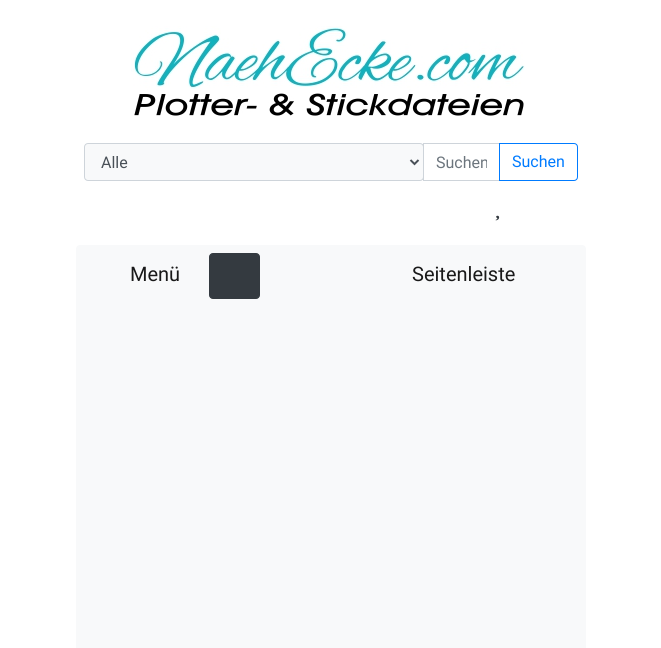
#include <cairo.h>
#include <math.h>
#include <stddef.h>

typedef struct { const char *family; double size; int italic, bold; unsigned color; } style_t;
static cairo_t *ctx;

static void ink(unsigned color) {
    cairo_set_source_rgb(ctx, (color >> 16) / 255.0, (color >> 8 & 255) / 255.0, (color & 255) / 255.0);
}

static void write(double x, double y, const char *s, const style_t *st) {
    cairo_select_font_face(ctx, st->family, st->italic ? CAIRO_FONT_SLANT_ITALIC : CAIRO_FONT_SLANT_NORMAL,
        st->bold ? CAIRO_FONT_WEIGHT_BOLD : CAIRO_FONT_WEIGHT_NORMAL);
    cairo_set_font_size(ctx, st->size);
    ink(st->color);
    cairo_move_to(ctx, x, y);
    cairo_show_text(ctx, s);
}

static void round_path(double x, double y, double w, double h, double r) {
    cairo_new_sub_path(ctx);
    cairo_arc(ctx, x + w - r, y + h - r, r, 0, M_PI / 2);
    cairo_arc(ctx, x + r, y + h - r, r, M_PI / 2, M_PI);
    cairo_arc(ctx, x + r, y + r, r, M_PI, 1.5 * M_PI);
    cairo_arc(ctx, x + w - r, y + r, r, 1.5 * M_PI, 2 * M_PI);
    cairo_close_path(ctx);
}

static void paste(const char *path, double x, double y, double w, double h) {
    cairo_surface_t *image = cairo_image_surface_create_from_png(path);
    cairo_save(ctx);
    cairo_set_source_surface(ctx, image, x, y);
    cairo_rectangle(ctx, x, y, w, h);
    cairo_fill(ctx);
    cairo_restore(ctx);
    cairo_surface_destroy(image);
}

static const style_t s1 = {"Roboto", 16, 0, 0, 0x495057};
static const style_t s2 = {"Roboto", 16, 0, 0, 0x6c757d};
static const style_t s3 = {"Roboto", 16, 0, 0, 0x007bff};
static const style_t s4 = {"Roboto", 20, 0, 0, 0x191919};

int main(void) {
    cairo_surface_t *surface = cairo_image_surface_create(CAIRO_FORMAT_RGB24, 661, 648);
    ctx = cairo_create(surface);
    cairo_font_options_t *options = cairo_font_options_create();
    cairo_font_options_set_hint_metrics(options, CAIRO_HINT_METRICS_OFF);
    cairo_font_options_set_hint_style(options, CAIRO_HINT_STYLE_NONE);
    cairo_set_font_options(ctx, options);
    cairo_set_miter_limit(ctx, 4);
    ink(0xffffff);
    cairo_paint(ctx);
    paste("pic1.png", 131, 26, 394, 90);
    ink(0xf8f9fa);
    round_path(84.5, 143.5, 339, 37, 3.5);
    cairo_fill_preserve(ctx);
    ink(0xced4da);
    cairo_set_line_width(ctx, 1);
    cairo_stroke(ctx);
    cairo_new_path(ctx);
    cairo_move_to(ctx, 410.5, 160);
    cairo_line_to(ctx, 414.5, 164);
    cairo_line_to(ctx, 418.5, 160);
    ink(0x495057);
    cairo_set_line_width(ctx, 2);
    cairo_stroke(ctx);
    write(101, 168, "Alle", &s1);
    cairo_rectangle(ctx, 423.5, 143.5, 76, 37);
    ink(0xced4da);
    cairo_set_line_width(ctx, 1);
    cairo_stroke(ctx);
    cairo_save(ctx);
    cairo_rectangle(ctx, 436, 153, 51, 19);
    cairo_clip(ctx);
    write(436, 168, "Suchen", &s2);
    cairo_restore(ctx);
    cairo_new_path(ctx);
    cairo_move_to(ctx, 499.5, 143.5);
    cairo_line_to(ctx, 574, 143.5);
    cairo_curve_to(ctx, 576, 143.5, 577.5, 145, 577.5, 147);
    cairo_line_to(ctx, 577.5, 177);
    cairo_curve_to(ctx, 577.5, 179, 576, 180.5, 574, 180.5);
    cairo_line_to(ctx, 499.5, 180.5);
    cairo_close_path(ctx);
    ink(0x007bff);
    cairo_stroke(ctx);
    write(512, 167, "Suchen", &s3);
    paste("pic2.png", 495, 215, 5, 6);
    ink(0xf8f9fa);
    round_path(76, 245, 510, 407, 4);
    cairo_fill(ctx);
    ink(0x343a40);
    round_path(209.5, 253.5, 50, 45, 3.5);
    cairo_fill_preserve(ctx);
    cairo_stroke(ctx);
    write(130, 281, "Menü", &s4);
    write(412, 281, "Seitenleiste", &s4);
    cairo_surface_write_to_png(surface, "screenshot.png");
    cairo_font_options_destroy(options);
    cairo_destroy(ctx);
    cairo_surface_destroy(surface);
    return 0;
}
